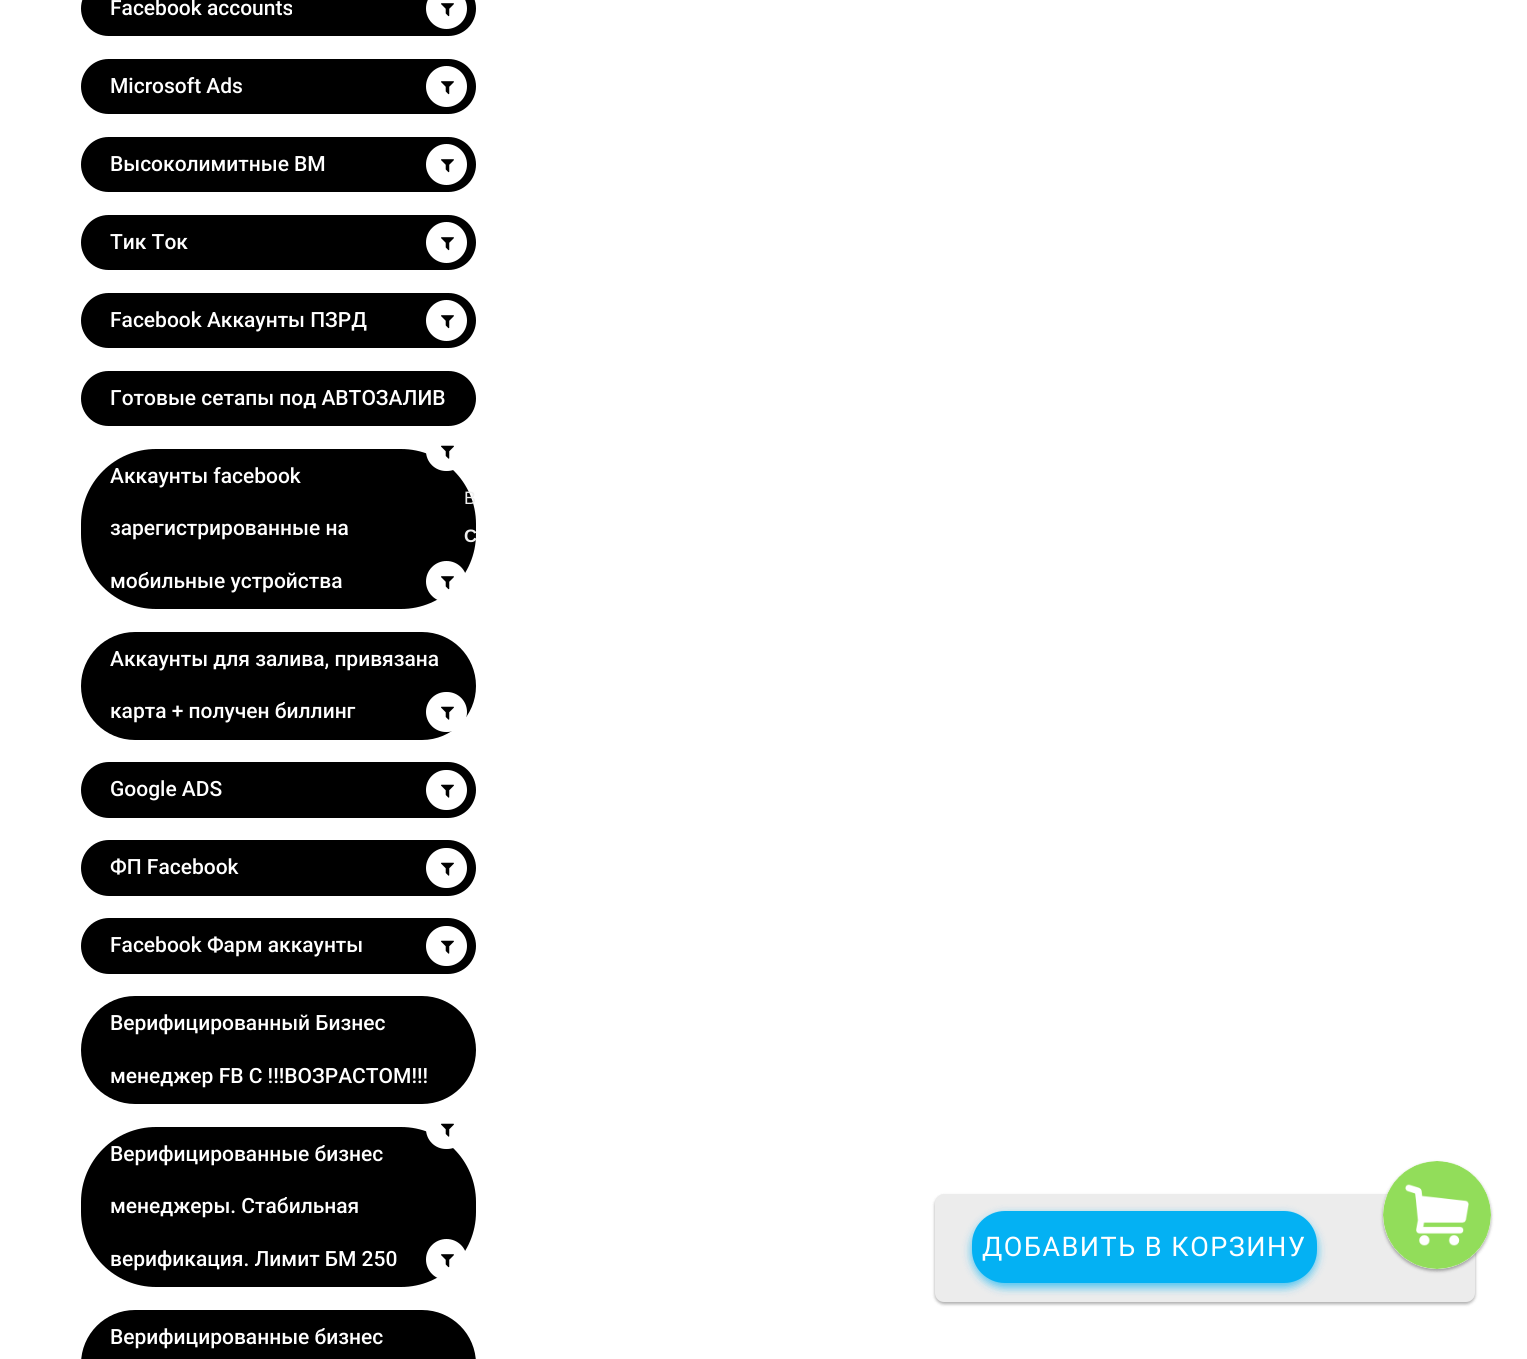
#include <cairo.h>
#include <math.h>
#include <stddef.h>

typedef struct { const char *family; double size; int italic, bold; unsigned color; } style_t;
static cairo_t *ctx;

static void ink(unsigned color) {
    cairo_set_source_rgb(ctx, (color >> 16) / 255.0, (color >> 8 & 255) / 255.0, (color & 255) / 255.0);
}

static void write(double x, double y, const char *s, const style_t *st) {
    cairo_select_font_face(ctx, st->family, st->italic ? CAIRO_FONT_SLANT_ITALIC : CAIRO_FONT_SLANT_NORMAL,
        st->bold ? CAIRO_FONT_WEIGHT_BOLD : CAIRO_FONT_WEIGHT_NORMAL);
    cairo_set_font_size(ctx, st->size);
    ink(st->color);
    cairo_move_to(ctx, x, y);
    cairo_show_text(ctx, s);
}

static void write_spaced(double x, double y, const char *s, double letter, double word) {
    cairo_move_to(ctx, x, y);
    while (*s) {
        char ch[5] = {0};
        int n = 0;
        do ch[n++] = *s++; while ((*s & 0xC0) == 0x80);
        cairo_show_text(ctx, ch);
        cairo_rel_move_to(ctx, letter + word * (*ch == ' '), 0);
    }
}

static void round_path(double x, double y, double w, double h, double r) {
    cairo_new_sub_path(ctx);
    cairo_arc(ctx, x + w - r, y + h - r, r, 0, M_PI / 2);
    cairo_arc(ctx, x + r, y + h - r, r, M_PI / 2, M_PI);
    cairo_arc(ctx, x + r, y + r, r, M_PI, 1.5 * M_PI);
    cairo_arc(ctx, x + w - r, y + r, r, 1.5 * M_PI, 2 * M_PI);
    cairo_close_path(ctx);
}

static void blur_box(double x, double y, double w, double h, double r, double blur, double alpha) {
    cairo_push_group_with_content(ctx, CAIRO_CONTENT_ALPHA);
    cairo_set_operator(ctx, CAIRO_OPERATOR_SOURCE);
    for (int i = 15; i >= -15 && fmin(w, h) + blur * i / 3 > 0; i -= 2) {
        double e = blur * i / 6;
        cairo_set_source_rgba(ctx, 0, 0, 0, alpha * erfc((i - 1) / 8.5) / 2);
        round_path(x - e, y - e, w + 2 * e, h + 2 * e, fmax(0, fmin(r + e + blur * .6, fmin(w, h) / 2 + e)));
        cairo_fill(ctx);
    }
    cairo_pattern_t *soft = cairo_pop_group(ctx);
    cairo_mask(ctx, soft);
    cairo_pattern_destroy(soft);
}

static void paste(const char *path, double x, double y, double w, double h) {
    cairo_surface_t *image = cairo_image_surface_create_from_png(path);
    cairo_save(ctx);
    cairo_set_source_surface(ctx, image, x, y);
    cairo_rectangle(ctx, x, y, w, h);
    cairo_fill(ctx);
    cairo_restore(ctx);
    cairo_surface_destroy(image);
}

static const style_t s1 = {"Roboto Medium", 21, 0, 0, 0xffffff};
static const style_t s2 = {"Liberation Sans", 18, 0, 0, 0xefefef};
static const style_t s3 = {"Liberation Sans", 18, 0, 1, 0xefefef};

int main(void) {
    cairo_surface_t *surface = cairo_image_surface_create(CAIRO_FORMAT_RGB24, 1527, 1359);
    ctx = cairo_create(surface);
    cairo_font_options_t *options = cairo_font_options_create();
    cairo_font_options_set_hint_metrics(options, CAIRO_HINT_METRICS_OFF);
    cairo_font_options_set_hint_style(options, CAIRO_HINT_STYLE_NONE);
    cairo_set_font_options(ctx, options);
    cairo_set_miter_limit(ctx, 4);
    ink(0xffffff);
    cairo_paint(ctx);
    ink(0x000000);
    round_path(81, -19, 395, 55, 27.5);
    cairo_fill(ctx);
    write(110, 15, "Facebook accounts", &s1);
    cairo_new_path(ctx);
    cairo_arc(ctx, 446.5, 8.5, 20.5, 0, 2 * M_PI);
    cairo_fill(ctx);
    paste("pic1.png", 441, 3, 13, 14);
    ink(0x000000);
    round_path(81, 59, 395, 55, 27.5);
    cairo_fill(ctx);
    write(110, 93, "Microsoft Ads", &s1);
    cairo_new_path(ctx);
    cairo_arc(ctx, 446.5, 86.5, 20.5, 0, 2 * M_PI);
    cairo_fill(ctx);
    paste("pic1.png", 441, 81, 13, 14);
    ink(0x000000);
    round_path(81, 137, 395, 55, 27.5);
    cairo_fill(ctx);
    write(110, 171, "Высоколимитные BM", &s1);
    cairo_new_path(ctx);
    cairo_arc(ctx, 446.5, 164.5, 20.5, 0, 2 * M_PI);
    cairo_fill(ctx);
    paste("pic1.png", 441, 159, 13, 14);
    ink(0x000000);
    round_path(81, 215, 395, 55, 27.5);
    cairo_fill(ctx);
    write(110, 249, "Тик Ток", &s1);
    cairo_new_path(ctx);
    cairo_arc(ctx, 446.5, 242.5, 20.5, 0, 2 * M_PI);
    cairo_fill(ctx);
    paste("pic1.png", 441, 237, 13, 14);
    ink(0x000000);
    round_path(81, 293, 395, 55, 27.5);
    cairo_fill(ctx);
    write(110, 327, "Facebook Аккаунты ПЗРД", &s1);
    cairo_new_path(ctx);
    cairo_arc(ctx, 446.5, 320.5, 20.5, 0, 2 * M_PI);
    cairo_fill(ctx);
    paste("pic1.png", 441, 315, 13, 14);
    ink(0x000000);
    round_path(81, 371, 395, 55, 27.5);
    cairo_fill(ctx);
    write(110, 405, "Готовые сетапы под АВТОЗАЛИВ", &s1);
    ink(0x000000);
    round_path(81, 449, 395, 160, 75);
    cairo_fill(ctx);
    ink(0xffffff);
    round_path(426, 431, 41, 40, 20);
    cairo_fill(ctx);
    paste("pic2.png", 441, 445, 13, 14);
    write(110, 483, "Аккаунты facebook", &s1);
    write(110, 535, "зарегистрированные на", &s1);
    write(110, 588, "мобильные устройства", &s1);
    cairo_new_path(ctx);
    cairo_arc(ctx, 446.5, 581.5, 20.5, 0, 2 * M_PI);
    cairo_fill(ctx);
    paste("pic1.png", 441, 576, 13, 14);
    ink(0x000000);
    round_path(81, 632, 395, 108, 54);
    cairo_fill(ctx);
    write(110, 666, "Аккаунты для залива, привязана", &s1);
    write(110, 718, "карта + получен биллинг", &s1);
    round_path(426, 692, 41, 40, 20);
    cairo_fill(ctx);
    paste("pic2.png", 441, 706, 13, 14);
    ink(0x000000);
    round_path(81, 762, 395, 56, 28);
    cairo_fill(ctx);
    write(110, 796, "Google ADS", &s1);
    round_path(426, 770, 41, 40, 20);
    cairo_fill(ctx);
    paste("pic2.png", 441, 784, 13, 14);
    ink(0x000000);
    round_path(81, 840, 395, 56, 28);
    cairo_fill(ctx);
    write(110, 874, "ФП Facebook", &s1);
    round_path(426, 848, 41, 40, 20);
    cairo_fill(ctx);
    paste("pic2.png", 441, 862, 13, 14);
    ink(0x000000);
    round_path(81, 918, 395, 56, 28);
    cairo_fill(ctx);
    write(110, 952, "Facebook Фарм аккаунты", &s1);
    round_path(426, 926, 41, 40, 20);
    cairo_fill(ctx);
    paste("pic2.png", 441, 940, 13, 14);
    ink(0x000000);
    round_path(81, 996, 395, 108, 54);
    cairo_fill(ctx);
    write(110, 1030, "Верифицированный Бизнес", &s1);
    write(110, 1083, "менеджер FB С !!!ВОЗРАСТОМ!!!", &s1);
    ink(0x000000);
    round_path(81, 1127, 395, 160, 75);
    cairo_fill(ctx);
    ink(0xffffff);
    round_path(426, 1109, 41, 40, 20);
    cairo_fill(ctx);
    paste("pic2.png", 441, 1123, 13, 14);
    write(110, 1161, "Верифицированные бизнес", &s1);
    write(110, 1213, "менеджеры. Стабильная", &s1);
    write(110, 1266, "верификация. Лимит БМ 250", &s1);
    cairo_new_path(ctx);
    cairo_arc(ctx, 446.5, 1259.5, 20.5, 0, 2 * M_PI);
    cairo_fill(ctx);
    paste("pic1.png", 441, 1254, 13, 14);
    ink(0x000000);
    round_path(81, 1310, 395, 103, 54);
    cairo_fill(ctx);
    write(110, 1344, "Верифицированные бизнес", &s1);
    write(464, 504, "В", &s2);
    write(464, 542, "С", &s3);
    ink(0x000000);
    blur_box(935, 1196, 540, 108, 9, 1.5, 0.24);
    blur_box(935, 1196, 540, 108, 9, 2, 0.12);
    ink(0xececec);
    round_path(935, 1194, 540, 108, 9);
    cairo_fill(ctx);
    ink(0x04b1f3);
    blur_box(972, 1215, 345, 72, 33, 4.5, 0.42);
    blur_box(972, 1215, 345, 72, 33, 4.5, 0.42);
    ink(0x04b1f3);
    round_path(972, 1211, 345, 72, 33);
    cairo_fill(ctx);
    cairo_select_font_face(ctx, "Roboto", CAIRO_FONT_SLANT_NORMAL, CAIRO_FONT_WEIGHT_NORMAL);
    cairo_set_font_size(ctx, 27);
    ink(0xffffff);
    write_spaced(982, 1256, "ДОБАВИТЬ В КОРЗИНУ", 1.5, 0);
    ink(0x000000);
    blur_box(1383, 1163, 108, 108, 54, 1.5, 0.24);
    blur_box(1383, 1163, 108, 108, 54, 2, 0.12);
    ink(0xffffff);
    cairo_arc(ctx, 1437, 1215, 54, 0, 2 * M_PI);
    cairo_fill(ctx);
    paste("pic3.png", 1383, 1161, 108, 108);
    cairo_surface_write_to_png(surface, "screenshot.png");
    cairo_font_options_destroy(options);
    cairo_destroy(ctx);
    cairo_surface_destroy(surface);
    return 0;
}
